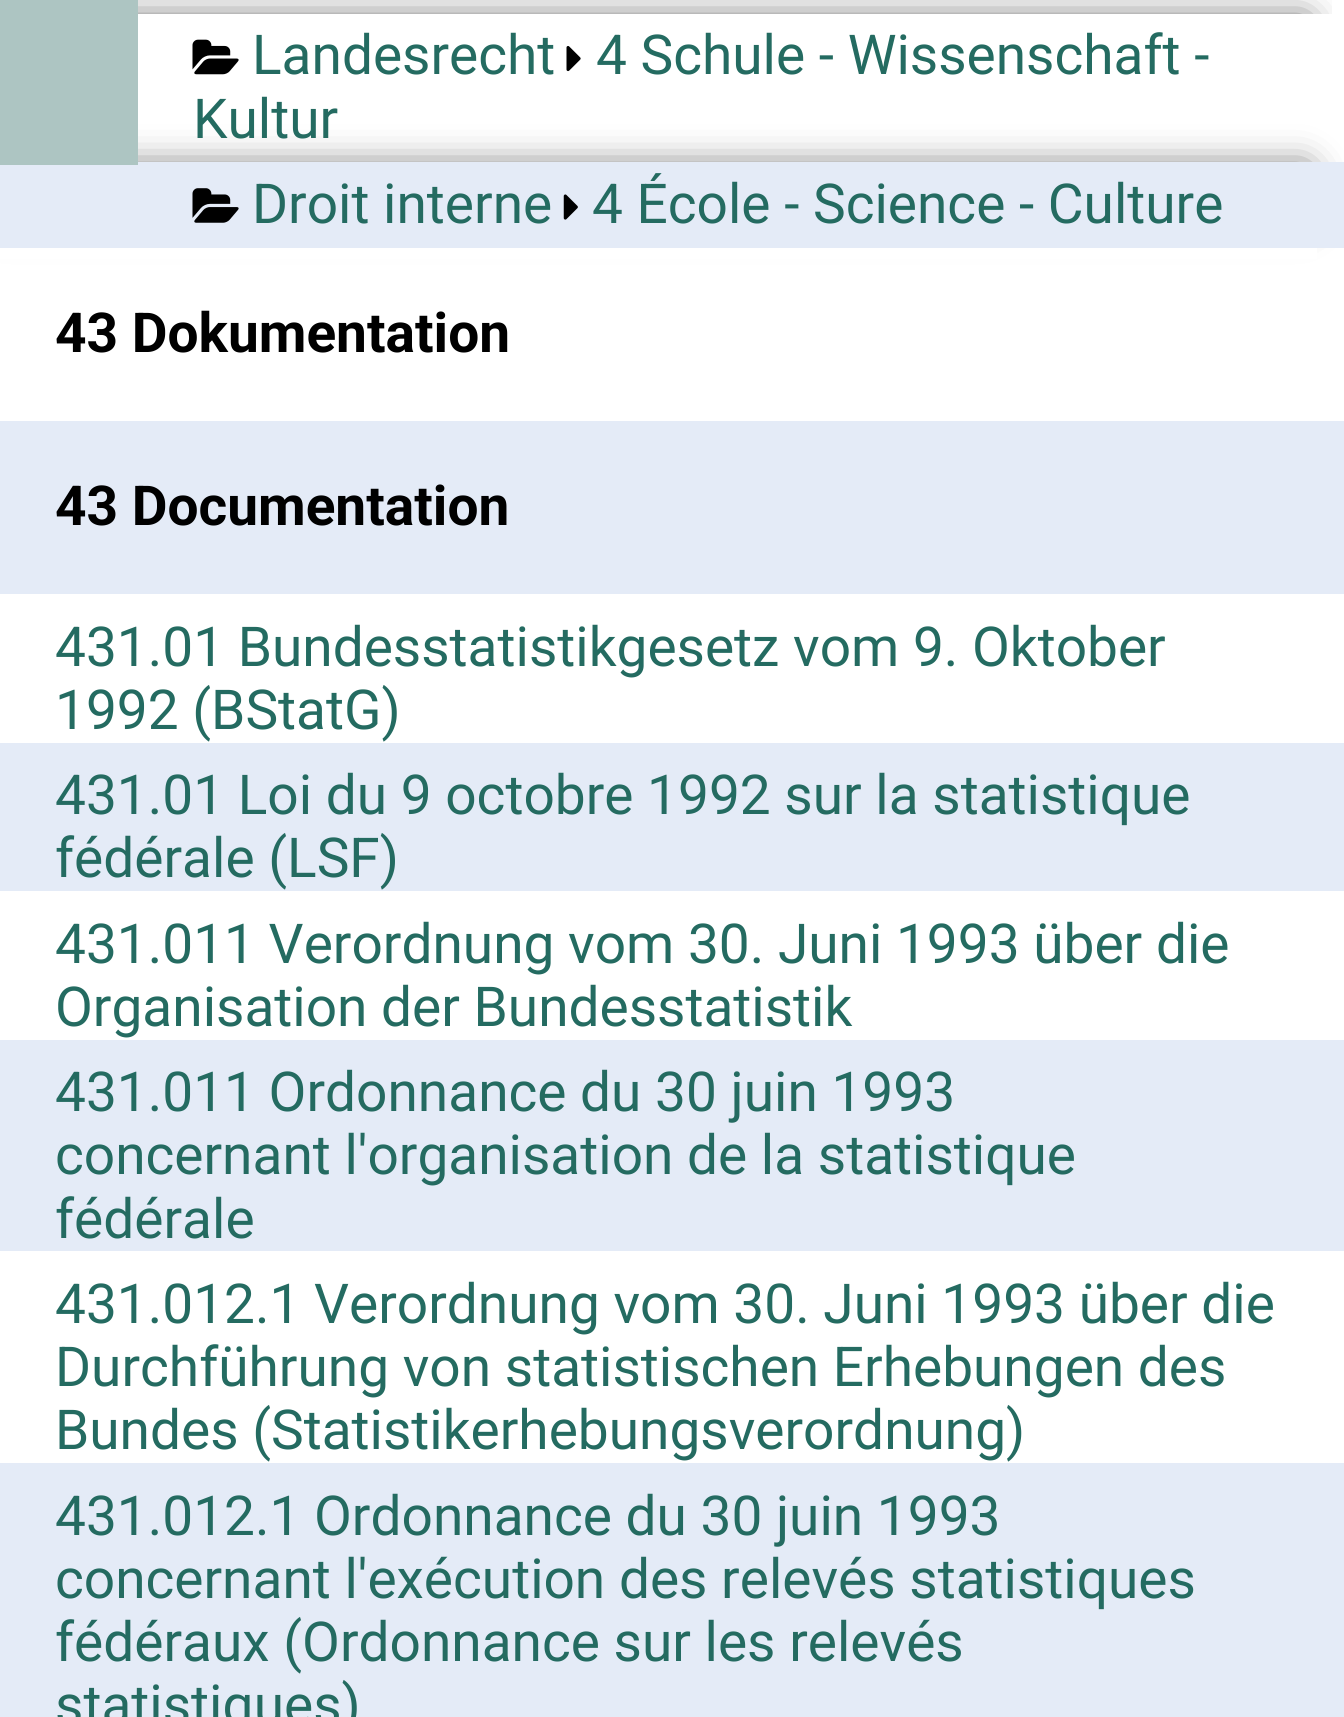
#include <cairo.h>
#include <math.h>
#include <stddef.h>

typedef struct { const char *family; double size; int italic, bold; unsigned color; } style_t;
static cairo_t *ctx;

static void ink(unsigned color) {
    cairo_set_source_rgb(ctx, (color >> 16) / 255.0, (color >> 8 & 255) / 255.0, (color & 255) / 255.0);
}

static void write(double x, double y, const char *s, const style_t *st) {
    cairo_select_font_face(ctx, st->family, st->italic ? CAIRO_FONT_SLANT_ITALIC : CAIRO_FONT_SLANT_NORMAL,
        st->bold ? CAIRO_FONT_WEIGHT_BOLD : CAIRO_FONT_WEIGHT_NORMAL);
    cairo_set_font_size(ctx, st->size);
    ink(st->color);
    cairo_move_to(ctx, x, y);
    cairo_show_text(ctx, s);
}

static void block(double x, double y, double w, double h, unsigned color) {
    ink(color);
    cairo_rectangle(ctx, x, y, w, h);
    cairo_fill(ctx);
}

static void round_path(double x, double y, double w, double h, double r) {
    cairo_new_sub_path(ctx);
    cairo_arc(ctx, x + w - r, y + h - r, r, 0, M_PI / 2);
    cairo_arc(ctx, x + r, y + h - r, r, M_PI / 2, M_PI);
    cairo_arc(ctx, x + r, y + r, r, M_PI, 1.5 * M_PI);
    cairo_arc(ctx, x + w - r, y + r, r, 1.5 * M_PI, 2 * M_PI);
    cairo_close_path(ctx);
}

static void blur_box(double x, double y, double w, double h, double r, double blur, double alpha) {
    cairo_push_group_with_content(ctx, CAIRO_CONTENT_ALPHA);
    cairo_set_operator(ctx, CAIRO_OPERATOR_SOURCE);
    for (int i = 15; i >= -15 && fmin(w, h) + blur * i / 3 > 0; i -= 2) {
        double e = blur * i / 6;
        cairo_set_source_rgba(ctx, 0, 0, 0, alpha * erfc((i - 1) / 8.5) / 2);
        round_path(x - e, y - e, w + 2 * e, h + 2 * e, fmax(0, fmin(r + e + blur * .6, fmin(w, h) / 2 + e)));
        cairo_fill(ctx);
    }
    cairo_pattern_t *soft = cairo_pop_group(ctx);
    cairo_mask(ctx, soft);
    cairo_pattern_destroy(soft);
}

static void paste(const char *path, double x, double y, double w, double h) {
    cairo_surface_t *image = cairo_image_surface_create_from_png(path);
    cairo_save(ctx);
    cairo_set_source_surface(ctx, image, x, y);
    cairo_rectangle(ctx, x, y, w, h);
    cairo_fill(ctx);
    cairo_restore(ctx);
    cairo_surface_destroy(image);
}

static const style_t s1 = {"Roboto", 55, 0, 0, 0x246b61};
static const style_t s2 = {"Roboto", 55, 0, 1, 0x000000};

int main(void) {
    cairo_surface_t *surface = cairo_image_surface_create(CAIRO_FORMAT_RGB24, 1344, 1717);
    ctx = cairo_create(surface);
    cairo_font_options_t *options = cairo_font_options_create();
    cairo_font_options_set_hint_metrics(options, CAIRO_HINT_METRICS_OFF);
    cairo_font_options_set_hint_style(options, CAIRO_HINT_STYLE_NONE);
    cairo_set_font_options(ctx, options);
    cairo_set_miter_limit(ctx, 4);
    ink(0xffffff);
    cairo_paint(ctx);
    cairo_save(ctx);
    cairo_rectangle(ctx, 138, 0, 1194, 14);
    cairo_clip(ctx);
    ink(0x000000);
    blur_box(0, 22, 1306, 110, 0, 19, 0.75);
    cairo_restore(ctx);
    ink(0x000000);
    blur_box(0, 171, 1306, 46, 0, 19, 0.75);
    block(0, 162, 1344, 86, 0xe4ebf7);
    block(0, 0, 138, 165, 0xadc5c2);
    paste("pic1.png", 192, 39, 47, 36);
    write(252, 74, "Landesrecht", &s1);
    paste("pic2.png", 566, 46, 15, 26);
    write(596, 74, "4 Schule - Wissenschaft -", &s1);
    write(193, 138, "Kultur", &s1);
    paste("pic3.png", 192, 188, 47, 35);
    write(252, 223, "Droit interne", &s1);
    paste("pic4.png", 563, 194, 15, 26);
    write(592, 223, "4 École - Science - Culture", &s1);
    block(0, 248, 1317, 11, 0xffffff);
    write(55, 352, "43 Dokumentation", &s2);
    block(0, 421, 1344, 173, 0xe4ebf7);
    write(55, 525, "43 Documentation", &s2);
    write(55, 666, "431.01 Bundesstatistikgesetz vom 9. Oktober", &s1);
    write(55, 729, "1992 (BStatG)", &s1);
    block(0, 743, 1344, 148, 0xe4ebf7);
    write(55, 814, "431.01 Loi du 9 octobre 1992 sur la statistique", &s1);
    write(55, 877, "fédérale (LSF)", &s1);
    write(55, 963, "431.011 Verordnung vom 30. Juni 1993 über die", &s1);
    write(55, 1026, "Organisation der Bundesstatistik", &s1);
    block(0, 1040, 1344, 211, 0xe4ebf7);
    write(55, 1111, "431.011 Ordonnance du 30 juin 1993", &s1);
    write(55, 1174, "concernant l'organisation de la statistique", &s1);
    write(55, 1238, "fédérale", &s1);
    write(55, 1323, "431.012.1 Verordnung vom 30. Juni 1993 über die", &s1);
    write(55, 1386, "Durchführung von statistischen Erhebungen des", &s1);
    write(55, 1449, "Bundes (Statistikerhebungsverordnung)", &s1);
    block(0, 1463, 1344, 254, 0xe4ebf7);
    write(55, 1535, "431.012.1 Ordonnance du 30 juin 1993", &s1);
    write(55, 1598, "concernant l'exécution des relevés statistiques", &s1);
    write(55, 1661, "fédéraux (Ordonnance sur les relevés", &s1);
    write(55, 1724, "statistiques)", &s1);
    cairo_surface_write_to_png(surface, "screenshot.png");
    cairo_font_options_destroy(options);
    cairo_destroy(ctx);
    cairo_surface_destroy(surface);
    return 0;
}
